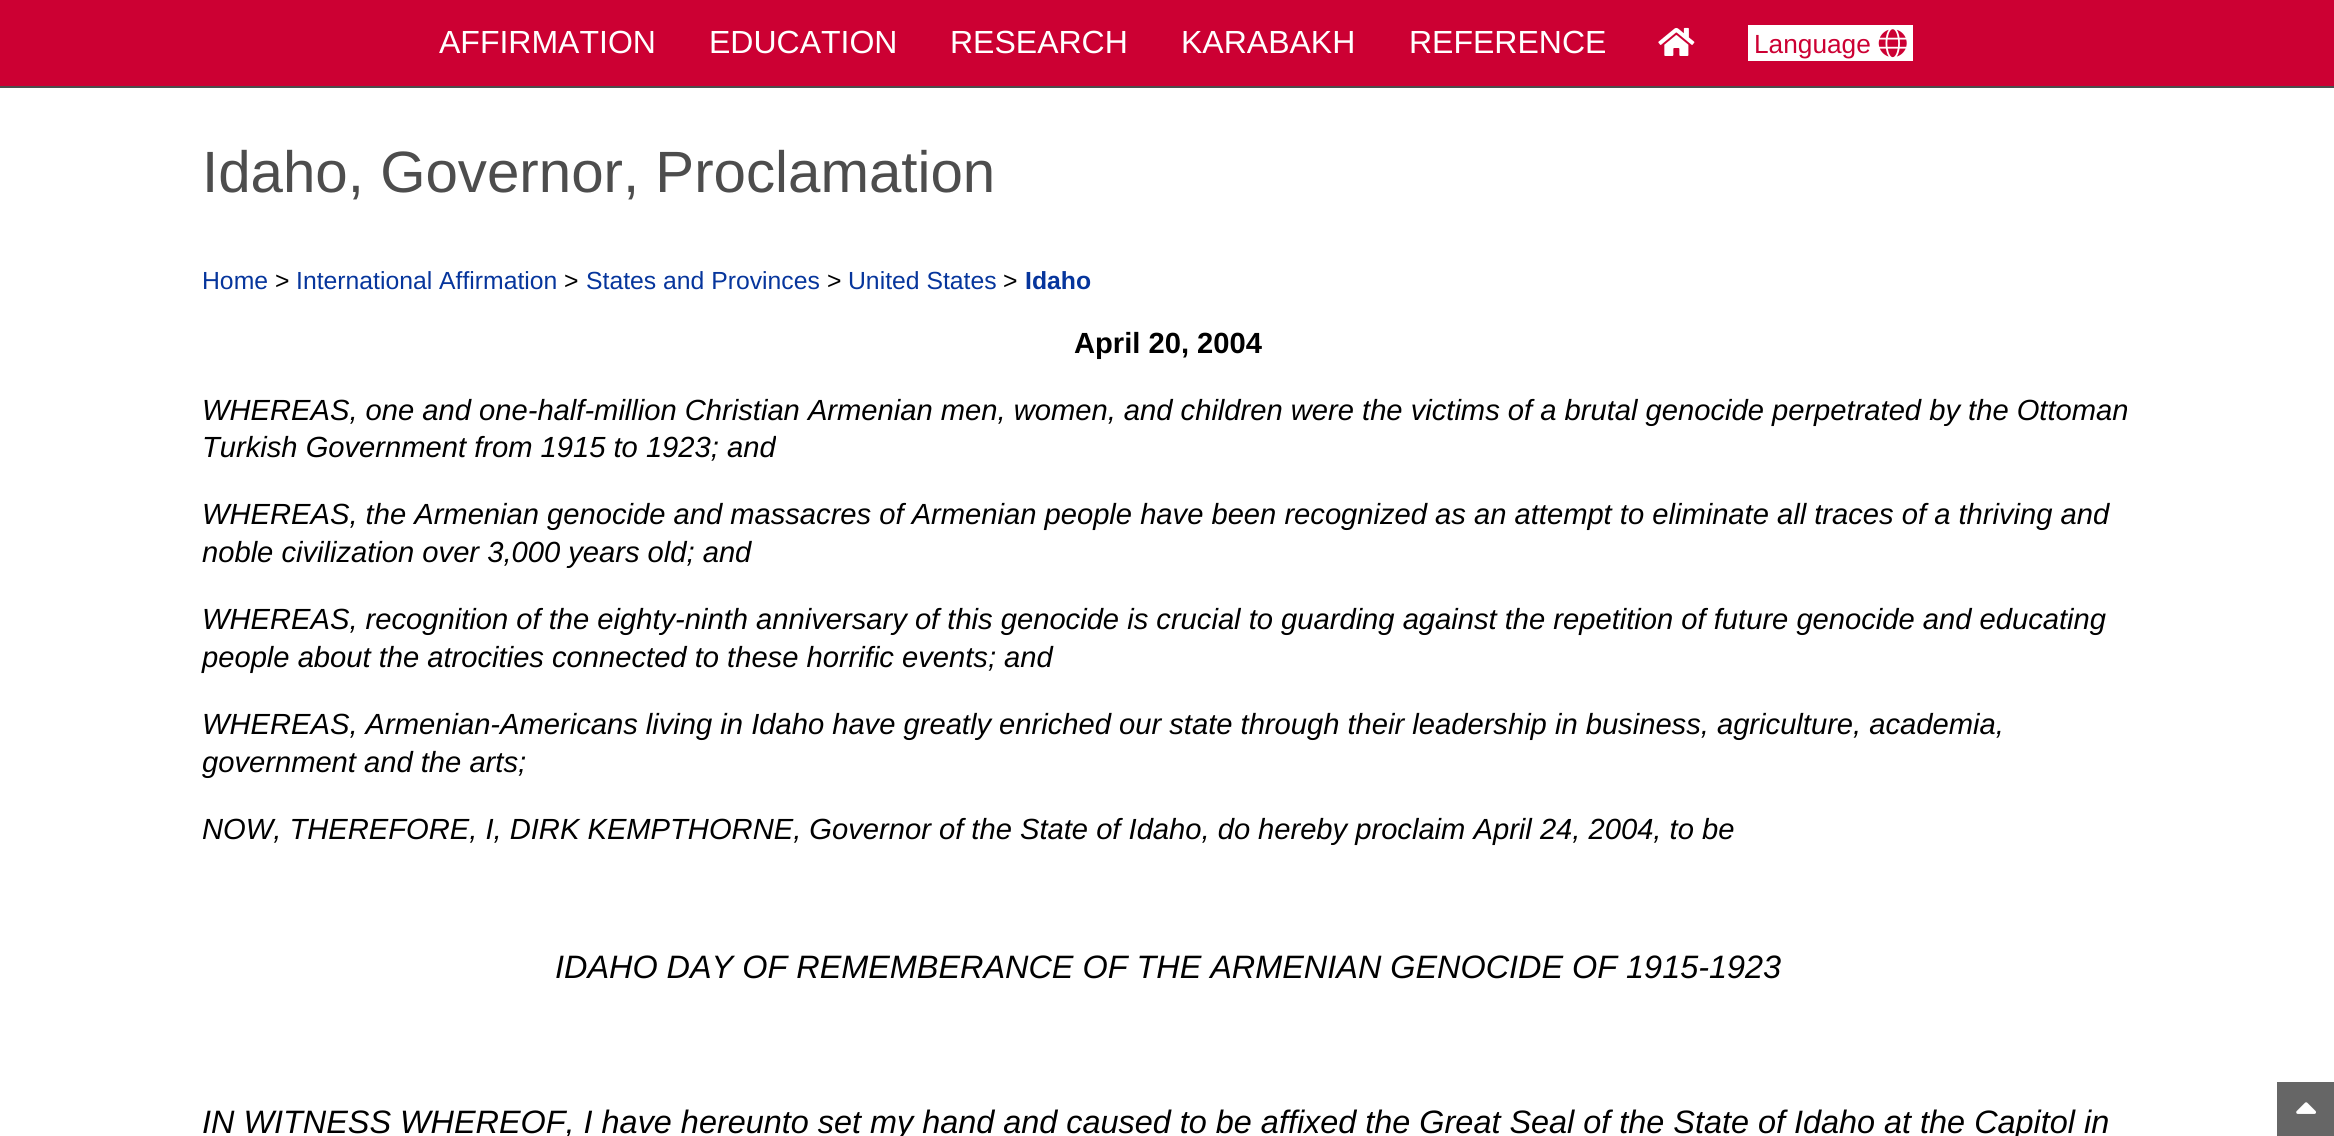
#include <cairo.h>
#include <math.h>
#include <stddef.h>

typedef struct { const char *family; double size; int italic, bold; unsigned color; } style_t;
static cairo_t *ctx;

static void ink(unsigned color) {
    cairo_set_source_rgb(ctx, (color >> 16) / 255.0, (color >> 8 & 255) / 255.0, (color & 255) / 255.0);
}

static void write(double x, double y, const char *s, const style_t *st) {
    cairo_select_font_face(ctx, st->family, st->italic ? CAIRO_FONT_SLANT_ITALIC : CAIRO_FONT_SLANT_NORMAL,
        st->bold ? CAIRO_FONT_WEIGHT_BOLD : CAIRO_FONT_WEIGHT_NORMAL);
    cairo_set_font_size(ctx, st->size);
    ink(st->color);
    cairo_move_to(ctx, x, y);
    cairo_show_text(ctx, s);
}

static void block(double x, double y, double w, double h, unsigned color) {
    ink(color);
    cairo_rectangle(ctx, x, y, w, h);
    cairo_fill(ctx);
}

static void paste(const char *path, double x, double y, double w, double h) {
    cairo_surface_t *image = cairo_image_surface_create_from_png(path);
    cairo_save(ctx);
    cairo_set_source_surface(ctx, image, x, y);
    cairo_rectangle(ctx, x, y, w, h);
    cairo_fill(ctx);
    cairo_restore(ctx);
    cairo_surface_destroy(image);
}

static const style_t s1 = {"Liberation Sans", 32, 0, 0, 0xffffff};
static const style_t s2 = {"Liberation Sans", 26.25, 0, 0, 0xcc0033};
static const style_t s3 = {"Liberation Sans", 58.25, 0, 0, 0x4d4d4d};
static const style_t s4 = {"Liberation Sans", 24.75, 0, 0, 0x06359c};
static const style_t s5 = {"Liberation Sans", 24.75, 0, 0, 0x000000};
static const style_t s6 = {"Liberation Sans", 24.75, 0, 1, 0x06359c};
static const style_t s7 = {"Liberation Sans", 29.15, 0, 1, 0x000000};
static const style_t s8 = {"Liberation Sans", 29.15, 1, 0, 0x000000};
static const style_t s9 = {"Liberation Sans", 32.4, 1, 0, 0x000000};

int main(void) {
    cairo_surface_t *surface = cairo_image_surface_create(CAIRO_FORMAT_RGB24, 2334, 1136);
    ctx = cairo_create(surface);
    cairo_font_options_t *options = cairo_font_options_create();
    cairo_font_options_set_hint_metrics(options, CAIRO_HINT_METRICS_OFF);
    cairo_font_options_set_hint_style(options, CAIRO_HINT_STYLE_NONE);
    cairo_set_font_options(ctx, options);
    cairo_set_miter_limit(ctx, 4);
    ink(0xffffff);
    cairo_paint(ctx);
    block(0, 0, 2334, 86, 0xcc0033);
    block(0, 86, 2334, 2, 0x4d4d4d);
    write(439, 53, "AFFIRMATION", &s1);
    write(709, 53, "EDUCATION", &s1);
    write(950, 53, "RESEARCH", &s1);
    write(1181, 53, "KARABAKH", &s1);
    write(1409, 53, "REFERENCE", &s1);
    paste("pic1.png", 1658, 27, 37, 29);
    block(1748, 25, 165, 36, 0xffffff);
    write(1754, 53, "Language", &s2);
    paste("pic2.png", 1878, 29, 29, 29);
    write(202, 192, "Idaho, Governor, Proclamation", &s3);
    write(202, 289, "Home", &s4);
    write(275, 289, ">", &s5);
    write(296, 289, "International Affirmation", &s4);
    write(564, 289, ">", &s5);
    write(586, 289, "States and Provinces", &s4);
    write(827, 289, ">", &s5);
    write(848, 289, "United States", &s4);
    write(1003, 289, ">", &s5);
    write(1025, 289, "Idaho", &s6);
    write(1074, 353, "April 20, 2004", &s7);
    write(202, 420, "WHEREAS, one and one-half-million Christian Armenian men, women, and children were the victims of a brutal genocide perpetrated by the Ottoman", &s8);
    write(202, 457, "Turkish Government from 1915 to 1923; and", &s8);
    write(202, 524, "WHEREAS, the Armenian genocide and massacres of Armenian people have been recognized as an attempt to eliminate all traces of a thriving and", &s8);
    write(202, 562, "noble civilization over 3,000 years old; and", &s8);
    write(202, 629, "WHEREAS, recognition of the eighty-ninth anniversary of this genocide is crucial to guarding against the repetition of future genocide and educating", &s8);
    write(202, 667, "people about the atrocities connected to these horrific events; and", &s8);
    write(202, 734, "WHEREAS, Armenian-Americans living in Idaho have greatly enriched our state through their leadership in business, agriculture, academia,", &s8);
    write(202, 772, "government and the arts;", &s8);
    write(202, 839, "NOW, THEREFORE, I, DIRK KEMPTHORNE, Governor of the State of Idaho, do", &s8);
    write(1258, 839, "hereby proclaim April 24, 2004, to be", &s8);
    write(555, 978, "IDAHO DAY OF REMEMBERANCE OF THE ARMENIAN GENOCIDE OF 1915-1923", &s9);
    write(202, 1133, "IN WITNESS WHEREOF, I have hereunto set my hand and caused to be affixed the Great Seal of the State of Idaho at the Capitol in", &s9);
    block(2277, 1082, 57, 54, 0x666666);
    paste("pic3.png", 2296, 1102, 20, 12);
    cairo_surface_write_to_png(surface, "screenshot.png");
    cairo_font_options_destroy(options);
    cairo_destroy(ctx);
    cairo_surface_destroy(surface);
    return 0;
}
